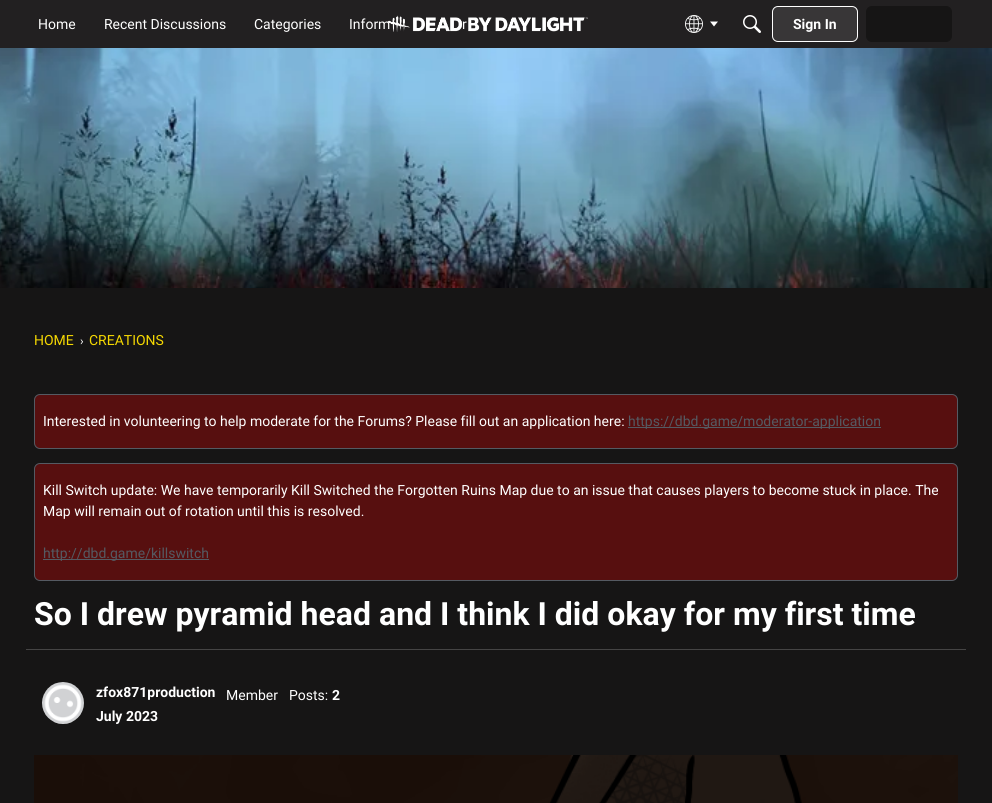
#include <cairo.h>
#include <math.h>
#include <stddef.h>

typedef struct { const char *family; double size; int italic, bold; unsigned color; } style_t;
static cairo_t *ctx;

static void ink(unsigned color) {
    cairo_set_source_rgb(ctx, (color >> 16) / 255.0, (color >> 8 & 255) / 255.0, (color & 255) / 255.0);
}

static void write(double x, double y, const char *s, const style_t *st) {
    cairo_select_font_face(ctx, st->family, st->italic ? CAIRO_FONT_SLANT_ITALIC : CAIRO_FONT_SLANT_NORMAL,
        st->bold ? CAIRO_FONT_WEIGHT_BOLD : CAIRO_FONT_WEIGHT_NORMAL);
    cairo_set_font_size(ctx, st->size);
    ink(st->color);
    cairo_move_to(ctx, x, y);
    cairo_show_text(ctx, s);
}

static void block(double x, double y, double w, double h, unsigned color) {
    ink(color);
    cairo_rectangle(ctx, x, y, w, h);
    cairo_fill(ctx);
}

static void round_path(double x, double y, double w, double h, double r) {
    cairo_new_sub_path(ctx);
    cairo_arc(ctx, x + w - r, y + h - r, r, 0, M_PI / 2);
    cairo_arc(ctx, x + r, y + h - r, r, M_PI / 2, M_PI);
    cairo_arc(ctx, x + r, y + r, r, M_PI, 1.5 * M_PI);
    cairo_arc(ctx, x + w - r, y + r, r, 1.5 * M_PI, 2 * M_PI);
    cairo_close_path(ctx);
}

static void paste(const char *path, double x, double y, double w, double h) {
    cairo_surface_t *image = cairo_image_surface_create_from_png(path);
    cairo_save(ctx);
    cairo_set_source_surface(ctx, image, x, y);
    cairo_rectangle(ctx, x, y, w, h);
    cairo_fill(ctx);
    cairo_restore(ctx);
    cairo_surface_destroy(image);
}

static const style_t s1 = {"Roboto", 14, 0, 0, 0xffffff};
static const style_t s2 = {"Roboto", 14, 0, 1, 0xffffff};
static const style_t s3 = {"Roboto", 14, 0, 0, 0xf5d801};
static const style_t s4 = {"Roboto", 12, 0, 0, 0xffffff};
static const style_t s5 = {"Roboto", 14, 0, 0, 0x555a62};
static const style_t s6 = {"Roboto", 32, 0, 1, 0xffffff};

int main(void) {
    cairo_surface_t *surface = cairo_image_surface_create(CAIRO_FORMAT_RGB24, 992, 803);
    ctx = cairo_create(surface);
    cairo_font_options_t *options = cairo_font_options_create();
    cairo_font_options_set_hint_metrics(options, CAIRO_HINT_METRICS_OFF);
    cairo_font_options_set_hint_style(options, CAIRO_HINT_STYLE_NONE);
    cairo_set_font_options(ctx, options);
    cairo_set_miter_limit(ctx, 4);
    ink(0x161515);
    cairo_paint(ctx);
    block(0, 0, 992, 48, 0x222021);
    write(38, 29, "Home", &s1);
    write(104, 29, "Recent Discussions", &s1);
    write(254, 29, "Categories", &s1);
    paste("pic1.png", 388, 15, 200, 17);
    write(349, 29, "Inform", &s1);
    write(462, 29, "r", &s1);
    paste("pic2.png", 685, 15, 18, 18);
    cairo_new_path(ctx);
    cairo_move_to(ctx, 710, 21.5);
    cairo_line_to(ctx, 718, 21.5);
    cairo_line_to(ctx, 714, 26.5);
    cairo_close_path(ctx);
    cairo_fill(ctx);
    paste("pic3.png", 743, 15, 18, 18);
    ink(0x383637);
    round_path(772.5, 6.5, 85, 35, 5.5);
    cairo_fill_preserve(ctx);
    ink(0xffffff);
    cairo_set_line_width(ctx, 1);
    cairo_stroke(ctx);
    write(793, 29, "Sign In", &s2);
    ink(0x161515);
    round_path(866.5, 6.5, 85, 35, 5.5);
    cairo_fill_preserve(ctx);
    cairo_stroke(ctx);
    paste("pic4.png", 0, 48, 992, 240);
    write(34, 345, "HOME", &s3);
    write(80, 345, "›", &s4);
    write(89, 345, "CREATIONS", &s3);
    ink(0x570f0f);
    round_path(34.5, 394.5, 923, 54, 5.5);
    cairo_fill_preserve(ctx);
    ink(0x555a62);
    cairo_stroke(ctx);
    write(43, 426, "Interested in volunteering to help moderate for the Forums? Please fill out an application here:", &s1);
    block(628, 427, 253, 1, 0x555a62);
    write(628, 426, "https://dbd.game/moderator-application", &s5);
    ink(0x570f0f);
    round_path(34.5, 463.5, 923, 117, 5.5);
    cairo_fill_preserve(ctx);
    ink(0x555a62);
    cairo_stroke(ctx);
    write(43, 495, "Kill Switch update: We have temporarily Kill Switched the Forgotten Ruins Map due to an issue that causes players to become stuck in place. The", &s1);
    write(43, 516, "Map will remain out of rotation until this is resolved.", &s1);
    block(43, 559, 166, 1, 0x555a62);
    write(43, 558, "http://dbd.game/killswitch", &s5);
    write(34, 625, "So I drew pyramid head and I think I did okay for my first time", &s6);
    block(26, 649, 940, 1, 0x454444);
    paste("pic5.png", 42, 682, 42, 42);
    write(96, 697, "zfox871production", &s2);
    write(226, 700, "Member", &s1);
    write(289, 700, "Posts:", &s1);
    write(332, 700, "2", &s2);
    write(96, 721, "July 2023", &s2);
    paste("pic6.png", 34, 755, 924, 48);
    cairo_surface_write_to_png(surface, "screenshot.png");
    cairo_font_options_destroy(options);
    cairo_destroy(ctx);
    cairo_surface_destroy(surface);
    return 0;
}
